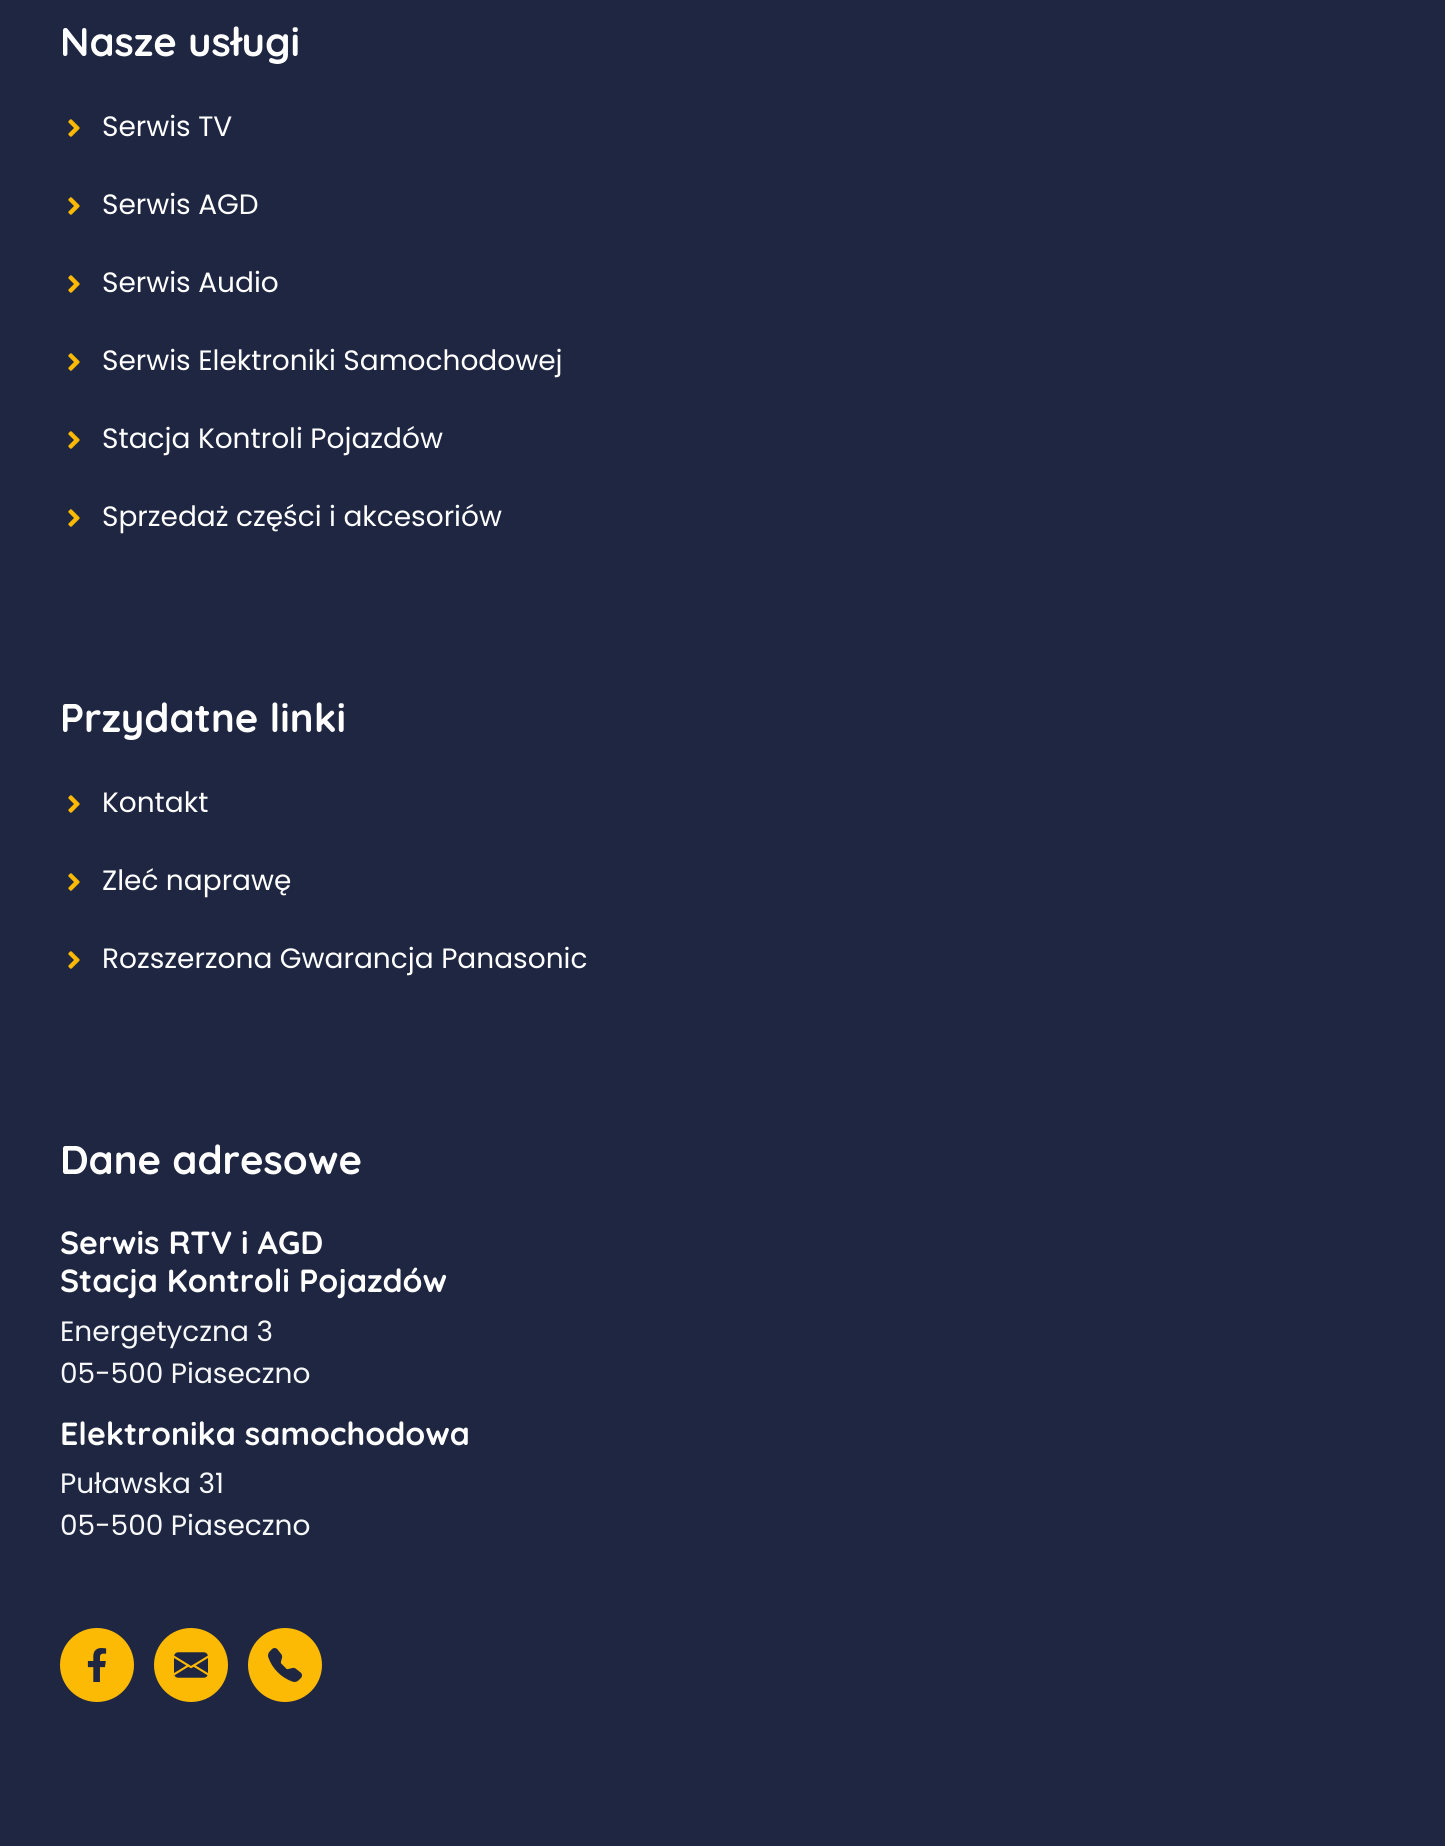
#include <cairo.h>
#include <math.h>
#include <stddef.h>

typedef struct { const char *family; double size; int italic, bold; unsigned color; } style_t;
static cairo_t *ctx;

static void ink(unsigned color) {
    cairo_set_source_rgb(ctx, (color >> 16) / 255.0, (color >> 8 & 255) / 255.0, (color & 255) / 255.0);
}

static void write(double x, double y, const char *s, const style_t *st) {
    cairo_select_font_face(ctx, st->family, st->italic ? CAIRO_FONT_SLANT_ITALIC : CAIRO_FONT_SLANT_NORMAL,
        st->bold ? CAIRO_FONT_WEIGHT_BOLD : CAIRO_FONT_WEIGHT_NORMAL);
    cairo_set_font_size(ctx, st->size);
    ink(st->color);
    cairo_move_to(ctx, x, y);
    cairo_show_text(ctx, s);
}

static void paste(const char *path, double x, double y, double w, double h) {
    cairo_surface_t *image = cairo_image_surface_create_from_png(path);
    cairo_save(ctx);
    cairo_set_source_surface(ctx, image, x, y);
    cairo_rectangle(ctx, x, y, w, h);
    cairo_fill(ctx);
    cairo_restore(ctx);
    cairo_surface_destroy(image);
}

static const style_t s1 = {"Quicksand", 40, 0, 1, 0xffffff};
static const style_t s2 = {"Poppins", 28, 0, 0, 0xffffff};
static const style_t s3 = {"Quicksand", 32, 0, 1, 0xffffff};
static const style_t s4 = {"Poppins", 28, 0, 0, 0xf7f8f9};

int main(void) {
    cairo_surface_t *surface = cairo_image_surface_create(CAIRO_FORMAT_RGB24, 1445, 1846);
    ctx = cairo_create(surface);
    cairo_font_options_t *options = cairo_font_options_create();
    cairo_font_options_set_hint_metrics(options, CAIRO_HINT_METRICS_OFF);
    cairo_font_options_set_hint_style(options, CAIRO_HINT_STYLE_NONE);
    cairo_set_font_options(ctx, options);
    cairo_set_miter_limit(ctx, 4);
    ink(0x1f2641);
    cairo_paint(ctx);
    write(60, 56, "Nasze usługi", &s1);
    paste("pic1.png", 68, 119, 12, 18);
    write(102, 136, "Serwis TV", &s2);
    paste("pic1.png", 68, 197, 12, 18);
    write(102, 214, "Serwis AGD", &s2);
    paste("pic1.png", 68, 275, 12, 18);
    write(102, 292, "Serwis Audio", &s2);
    paste("pic1.png", 68, 353, 12, 18);
    write(102, 370, "Serwis Elektroniki Samochodowej", &s2);
    paste("pic1.png", 68, 431, 12, 18);
    write(102, 448, "Stacja Kontroli Pojazdów", &s2);
    paste("pic1.png", 68, 509, 12, 18);
    write(102, 526, "Sprzedaż części i akcesoriów", &s2);
    write(60, 732, "Przydatne linki", &s1);
    paste("pic1.png", 68, 795, 12, 18);
    write(102, 812, "Kontakt", &s2);
    paste("pic1.png", 68, 873, 12, 18);
    write(102, 890, "Zleć naprawę", &s2);
    paste("pic1.png", 68, 951, 12, 18);
    write(102, 968, "Rozszerzona Gwarancja Panasonic", &s2);
    write(60, 1174, "Dane adresowe", &s1);
    write(60, 1254, "Serwis RTV i AGD", &s3);
    write(60, 1292, "Stacja Kontroli Pojazdów", &s3);
    write(60, 1341, "Energetyczna 3", &s4);
    write(60, 1383, "05-500 Piaseczno", &s4);
    write(60, 1445, "Elektronika samochodowa", &s3);
    write(60, 1493, "Puławska 31", &s4);
    write(60, 1535, "05-500 Piaseczno", &s4);
    ink(0xfcba04);
    cairo_new_path(ctx);
    cairo_arc(ctx, 97, 1665, 37, 0, 2 * M_PI);
    cairo_fill(ctx);
    paste("pic2.png", 87, 1648, 20, 34);
    cairo_arc(ctx, 191, 1665, 37, 0, 2 * M_PI);
    cairo_fill(ctx);
    paste("pic3.png", 174, 1652, 34, 26);
    cairo_arc(ctx, 285, 1665, 37, 0, 2 * M_PI);
    cairo_fill(ctx);
    paste("pic4.png", 268, 1648, 34, 34);
    cairo_surface_write_to_png(surface, "screenshot.png");
    cairo_font_options_destroy(options);
    cairo_destroy(ctx);
    cairo_surface_destroy(surface);
    return 0;
}
